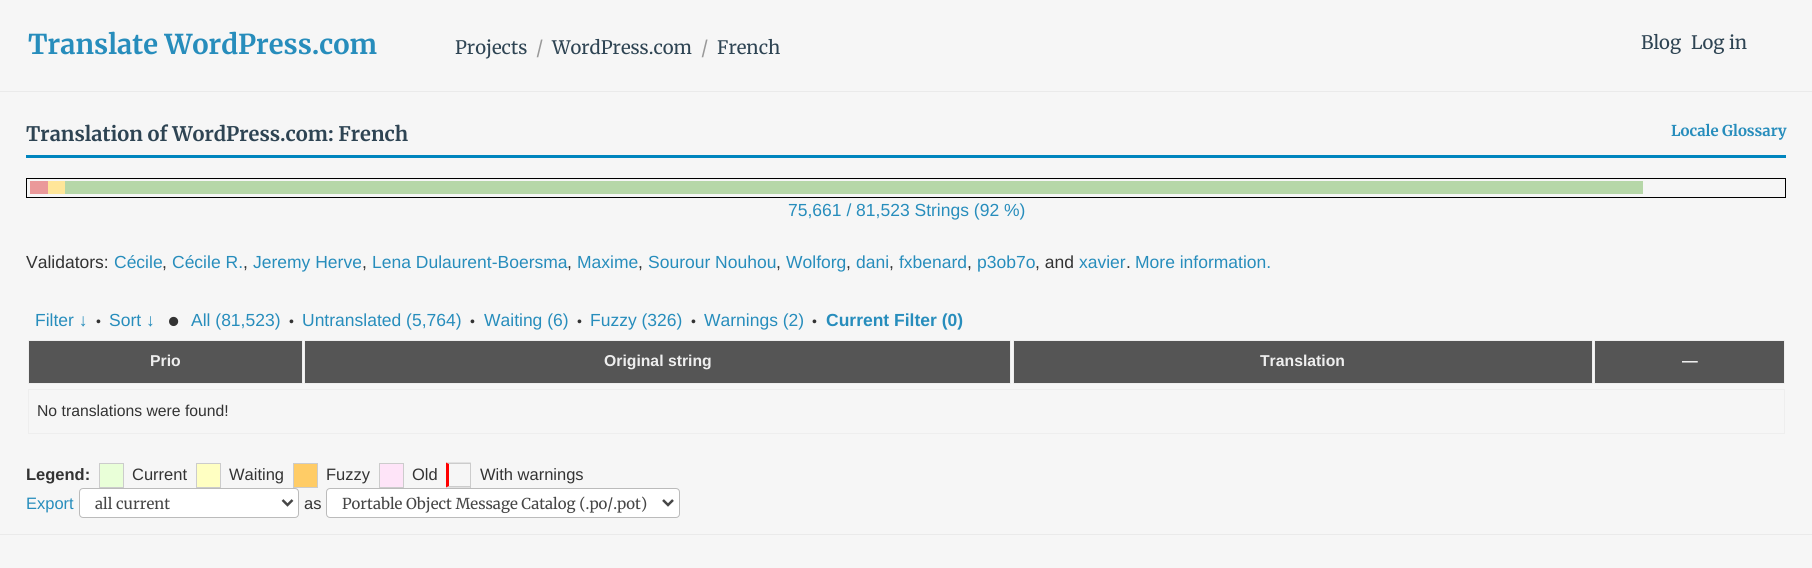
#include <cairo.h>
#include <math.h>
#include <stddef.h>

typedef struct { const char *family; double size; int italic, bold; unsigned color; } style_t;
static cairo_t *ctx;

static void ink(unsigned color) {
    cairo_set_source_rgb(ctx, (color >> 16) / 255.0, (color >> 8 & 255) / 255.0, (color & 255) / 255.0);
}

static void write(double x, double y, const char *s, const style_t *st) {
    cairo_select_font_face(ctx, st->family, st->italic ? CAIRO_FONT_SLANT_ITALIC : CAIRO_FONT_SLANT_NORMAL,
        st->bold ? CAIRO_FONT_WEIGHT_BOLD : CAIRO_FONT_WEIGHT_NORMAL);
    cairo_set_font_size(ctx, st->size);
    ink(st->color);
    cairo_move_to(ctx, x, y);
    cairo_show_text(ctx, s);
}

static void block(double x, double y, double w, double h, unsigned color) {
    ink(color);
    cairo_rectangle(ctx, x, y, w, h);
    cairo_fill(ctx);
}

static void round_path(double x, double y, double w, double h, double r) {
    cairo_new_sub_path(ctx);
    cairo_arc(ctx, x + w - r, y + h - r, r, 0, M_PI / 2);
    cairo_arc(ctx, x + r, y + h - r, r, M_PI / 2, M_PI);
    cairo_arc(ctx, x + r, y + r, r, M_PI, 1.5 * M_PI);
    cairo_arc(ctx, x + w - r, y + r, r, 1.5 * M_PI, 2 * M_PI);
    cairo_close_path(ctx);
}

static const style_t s1 = {"Merriweather", 27.3, 0, 1, 0x278dbc};
static const style_t s2 = {"Merriweather", 18.5, 0, 0, 0x2e4453};
static const style_t s3 = {"Merriweather", 18.5, 0, 0, 0x999999};
static const style_t s4 = {"Merriweather", 20, 0, 1, 0x2e4453};
static const style_t s5 = {"Merriweather", 15, 0, 1, 0x278dbc};
static const style_t s6 = {"Liberation Sans", 17.5, 0, 0, 0x278dbc};
static const style_t s7 = {"Liberation Sans", 17.5, 0, 0, 0x333333};
static const style_t s8 = {"Liberation Sans", 14, 0, 0, 0x333333};
static const style_t s9 = {"Liberation Sans", 32, 0, 1, 0x333333};
static const style_t s10 = {"Liberation Sans", 17.5, 0, 1, 0x278dbc};
static const style_t s11 = {"Liberation Sans", 15.75, 0, 1, 0xeeeeee};
static const style_t s12 = {"Liberation Sans", 15.75, 0, 0, 0x333333};
static const style_t s13 = {"Liberation Sans", 16.5, 0, 1, 0x333333};
static const style_t s14 = {"Liberation Sans", 16.5, 0, 0, 0x333333};
static const style_t s15 = {"Liberation Sans", 16.5, 0, 0, 0x278dbc};
static const style_t s16 = {"Merriweather", 15, 0, 0, 0x464646};

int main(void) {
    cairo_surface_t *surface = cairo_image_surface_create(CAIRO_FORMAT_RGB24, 1812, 568);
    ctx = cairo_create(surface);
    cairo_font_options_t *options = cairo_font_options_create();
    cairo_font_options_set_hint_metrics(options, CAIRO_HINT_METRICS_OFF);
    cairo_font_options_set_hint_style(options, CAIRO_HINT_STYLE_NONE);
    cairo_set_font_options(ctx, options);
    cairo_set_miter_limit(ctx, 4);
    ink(0xf6f6f6);
    cairo_paint(ctx);
    block(0, 91, 1812, 1, 0xeaeaea);
    write(28, 54, "Translate WordPress.com", &s1);
    write(455, 54, "Projects", &s2);
    write(536, 54, "/", &s3);
    write(552, 54, "WordPress.com", &s2);
    write(701, 54, "/", &s3);
    write(717, 54, "French", &s2);
    write(1641, 49, "Blog", &s2);
    write(1691, 49, "Log in", &s2);
    block(26, 155, 1760, 3, 0x0085be);
    write(26, 141, "Translation of WordPress.com: French", &s4);
    write(1671, 136, "Locale Glossary", &s5);
    cairo_rectangle(ctx, 26.5, 178.5, 1759, 19);
    ink(0x000000);
    cairo_set_line_width(ctx, 1);
    cairo_stroke(ctx);
    block(30, 181, 18, 13, 0xea999a);
    block(48, 181, 17, 13, 0xffe699);
    block(65, 181, 1578, 13, 0xb6d7a8);
    write(788, 216, "75,661 / 81,523 Strings (92 %)", &s6);
    write(26, 268, "Validators:", &s7);
    write(114, 268, "Cécile", &s6);
    write(162, 268, ",", &s7);
    write(172, 268, "Cécile R.", &s6);
    write(243, 268, ",", &s7);
    write(253, 268, "Jeremy Herve", &s6);
    write(362, 268, ",", &s7);
    write(372, 268, "Lena Dulaurent-Boersma", &s6);
    write(567, 268, ",", &s7);
    write(577, 268, "Maxime", &s6);
    write(638, 268, ",", &s7);
    write(648, 268, "Sourour Nouhou", &s6);
    write(776, 268, ",", &s7);
    write(786, 268, "Wolforg", &s6);
    write(846, 268, ",", &s7);
    write(856, 268, "dani", &s6);
    write(889, 268, ",", &s7);
    write(899, 268, "fxbenard", &s6);
    write(967, 268, ",", &s7);
    write(977, 268, "p3ob7o", &s6);
    write(1035, 268, ", and", &s7);
    write(1079, 268, "xavier", &s6);
    write(1126, 268, ".", &s7);
    write(1135, 268, "More information.", &s6);
    write(35, 326, "Filter ↓", &s6);
    write(96, 326, "•", &s8);
    write(109, 326, "Sort ↓", &s6);
    write(168, 332, "•", &s9);
    write(191, 326, "All (81,523)", &s6);
    write(289, 326, "•", &s8);
    write(302, 326, "Untranslated (5,764)", &s6);
    write(470, 326, "•", &s8);
    write(484, 326, "Waiting (6)", &s6);
    write(577, 326, "•", &s8);
    write(590, 326, "Fuzzy (326)", &s6);
    write(691, 326, "•", &s8);
    write(704, 326, "Warnings (2)", &s6);
    write(812, 326, "•", &s8);
    write(826, 326, "Current Filter (0)", &s10);
    ink(0x555555);
    cairo_rectangle(ctx, 28.5, 340.5, 274, 43);
    cairo_fill_preserve(ctx);
    ink(0xeeeeee);
    cairo_stroke(ctx);
    write(150, 366, "Prio", &s11);
    ink(0x555555);
    cairo_rectangle(ctx, 304.5, 340.5, 706, 43);
    cairo_fill_preserve(ctx);
    ink(0xeeeeee);
    cairo_stroke(ctx);
    write(604, 366, "Original string", &s11);
    ink(0x555555);
    cairo_rectangle(ctx, 1013.5, 340.5, 579, 43);
    cairo_fill_preserve(ctx);
    ink(0xeeeeee);
    cairo_stroke(ctx);
    write(1260, 366, "Translation", &s11);
    ink(0x555555);
    cairo_rectangle(ctx, 1594.5, 340.5, 190, 43);
    cairo_fill_preserve(ctx);
    ink(0xeeeeee);
    cairo_stroke(ctx);
    write(1682, 366, "—", &s11);
    cairo_rectangle(ctx, 28.5, 389.5, 1756, 44);
    cairo_stroke(ctx);
    write(37, 416, "No translations were found!", &s12);
    write(26, 480, "Legend:", &s13);
    ink(0xe9ffd8);
    cairo_rectangle(ctx, 99.5, 463.5, 24, 24);
    cairo_fill_preserve(ctx);
    ink(0xcccccc);
    cairo_stroke(ctx);
    write(132, 480, "Current", &s14);
    ink(0xffffc2);
    cairo_rectangle(ctx, 196.5, 463.5, 24, 24);
    cairo_fill_preserve(ctx);
    ink(0xcccccc);
    cairo_stroke(ctx);
    write(229, 480, "Waiting", &s14);
    ink(0xffcc66);
    cairo_rectangle(ctx, 293.5, 463.5, 24, 24);
    cairo_fill_preserve(ctx);
    ink(0xcccccc);
    cairo_stroke(ctx);
    write(326, 480, "Fuzzy", &s14);
    ink(0xfee4f8);
    cairo_rectangle(ctx, 379.5, 463.5, 24, 24);
    cairo_fill_preserve(ctx);
    ink(0xcccccc);
    cairo_stroke(ctx);
    write(412, 480, "Old", &s14);
    ink(0xcccccc);
    cairo_new_path(ctx);
    cairo_move_to(ctx, 446, 462.5);
    cairo_line_to(ctx, 471, 462.5);
    cairo_line_to(ctx, 470, 464);
    cairo_line_to(ctx, 449, 464);
    cairo_close_path(ctx);
    cairo_fill(ctx);
    block(470, 463, 1, 25, 0xcccccc);
    cairo_new_path(ctx);
    cairo_move_to(ctx, 471, 487.5);
    cairo_line_to(ctx, 446, 487.5);
    cairo_line_to(ctx, 449, 486);
    cairo_line_to(ctx, 470, 486);
    cairo_close_path(ctx);
    cairo_fill(ctx);
    ink(0xff0000);
    cairo_new_path(ctx);
    cairo_move_to(ctx, 446, 487.5);
    cairo_line_to(ctx, 446, 462.5);
    cairo_line_to(ctx, 449, 464);
    cairo_line_to(ctx, 449, 486);
    cairo_close_path(ctx);
    cairo_fill(ctx);
    write(480, 480, "With warnings", &s14);
    write(26, 509, "Export", &s15);
    ink(0xffffff);
    round_path(79.5, 488.5, 219, 29, 3.5);
    cairo_fill_preserve(ctx);
    ink(0xbbbbbb);
    cairo_stroke(ctx);
    cairo_new_path(ctx);
    cairo_move_to(ctx, 282.5, 500);
    cairo_line_to(ctx, 287.5, 505);
    cairo_line_to(ctx, 292.5, 500);
    ink(0x464646);
    cairo_set_line_width(ctx, 2.5);
    cairo_stroke(ctx);
    write(95, 509, "all current", &s16);
    write(304, 509, "as", &s14);
    ink(0xffffff);
    round_path(326.5, 488.5, 353, 29, 3.5);
    cairo_fill_preserve(ctx);
    ink(0xbbbbbb);
    cairo_set_line_width(ctx, 1);
    cairo_stroke(ctx);
    cairo_new_path(ctx);
    cairo_move_to(ctx, 663, 500);
    cairo_line_to(ctx, 668, 505);
    cairo_line_to(ctx, 673, 500);
    ink(0x464646);
    cairo_set_line_width(ctx, 2.5);
    cairo_stroke(ctx);
    write(342, 509, "Portable Object Message Catalog (.po/.pot)", &s16);
    block(0, 534, 1812, 1, 0xeaeaea);
    cairo_surface_write_to_png(surface, "screenshot.png");
    cairo_font_options_destroy(options);
    cairo_destroy(ctx);
    cairo_surface_destroy(surface);
    return 0;
}
